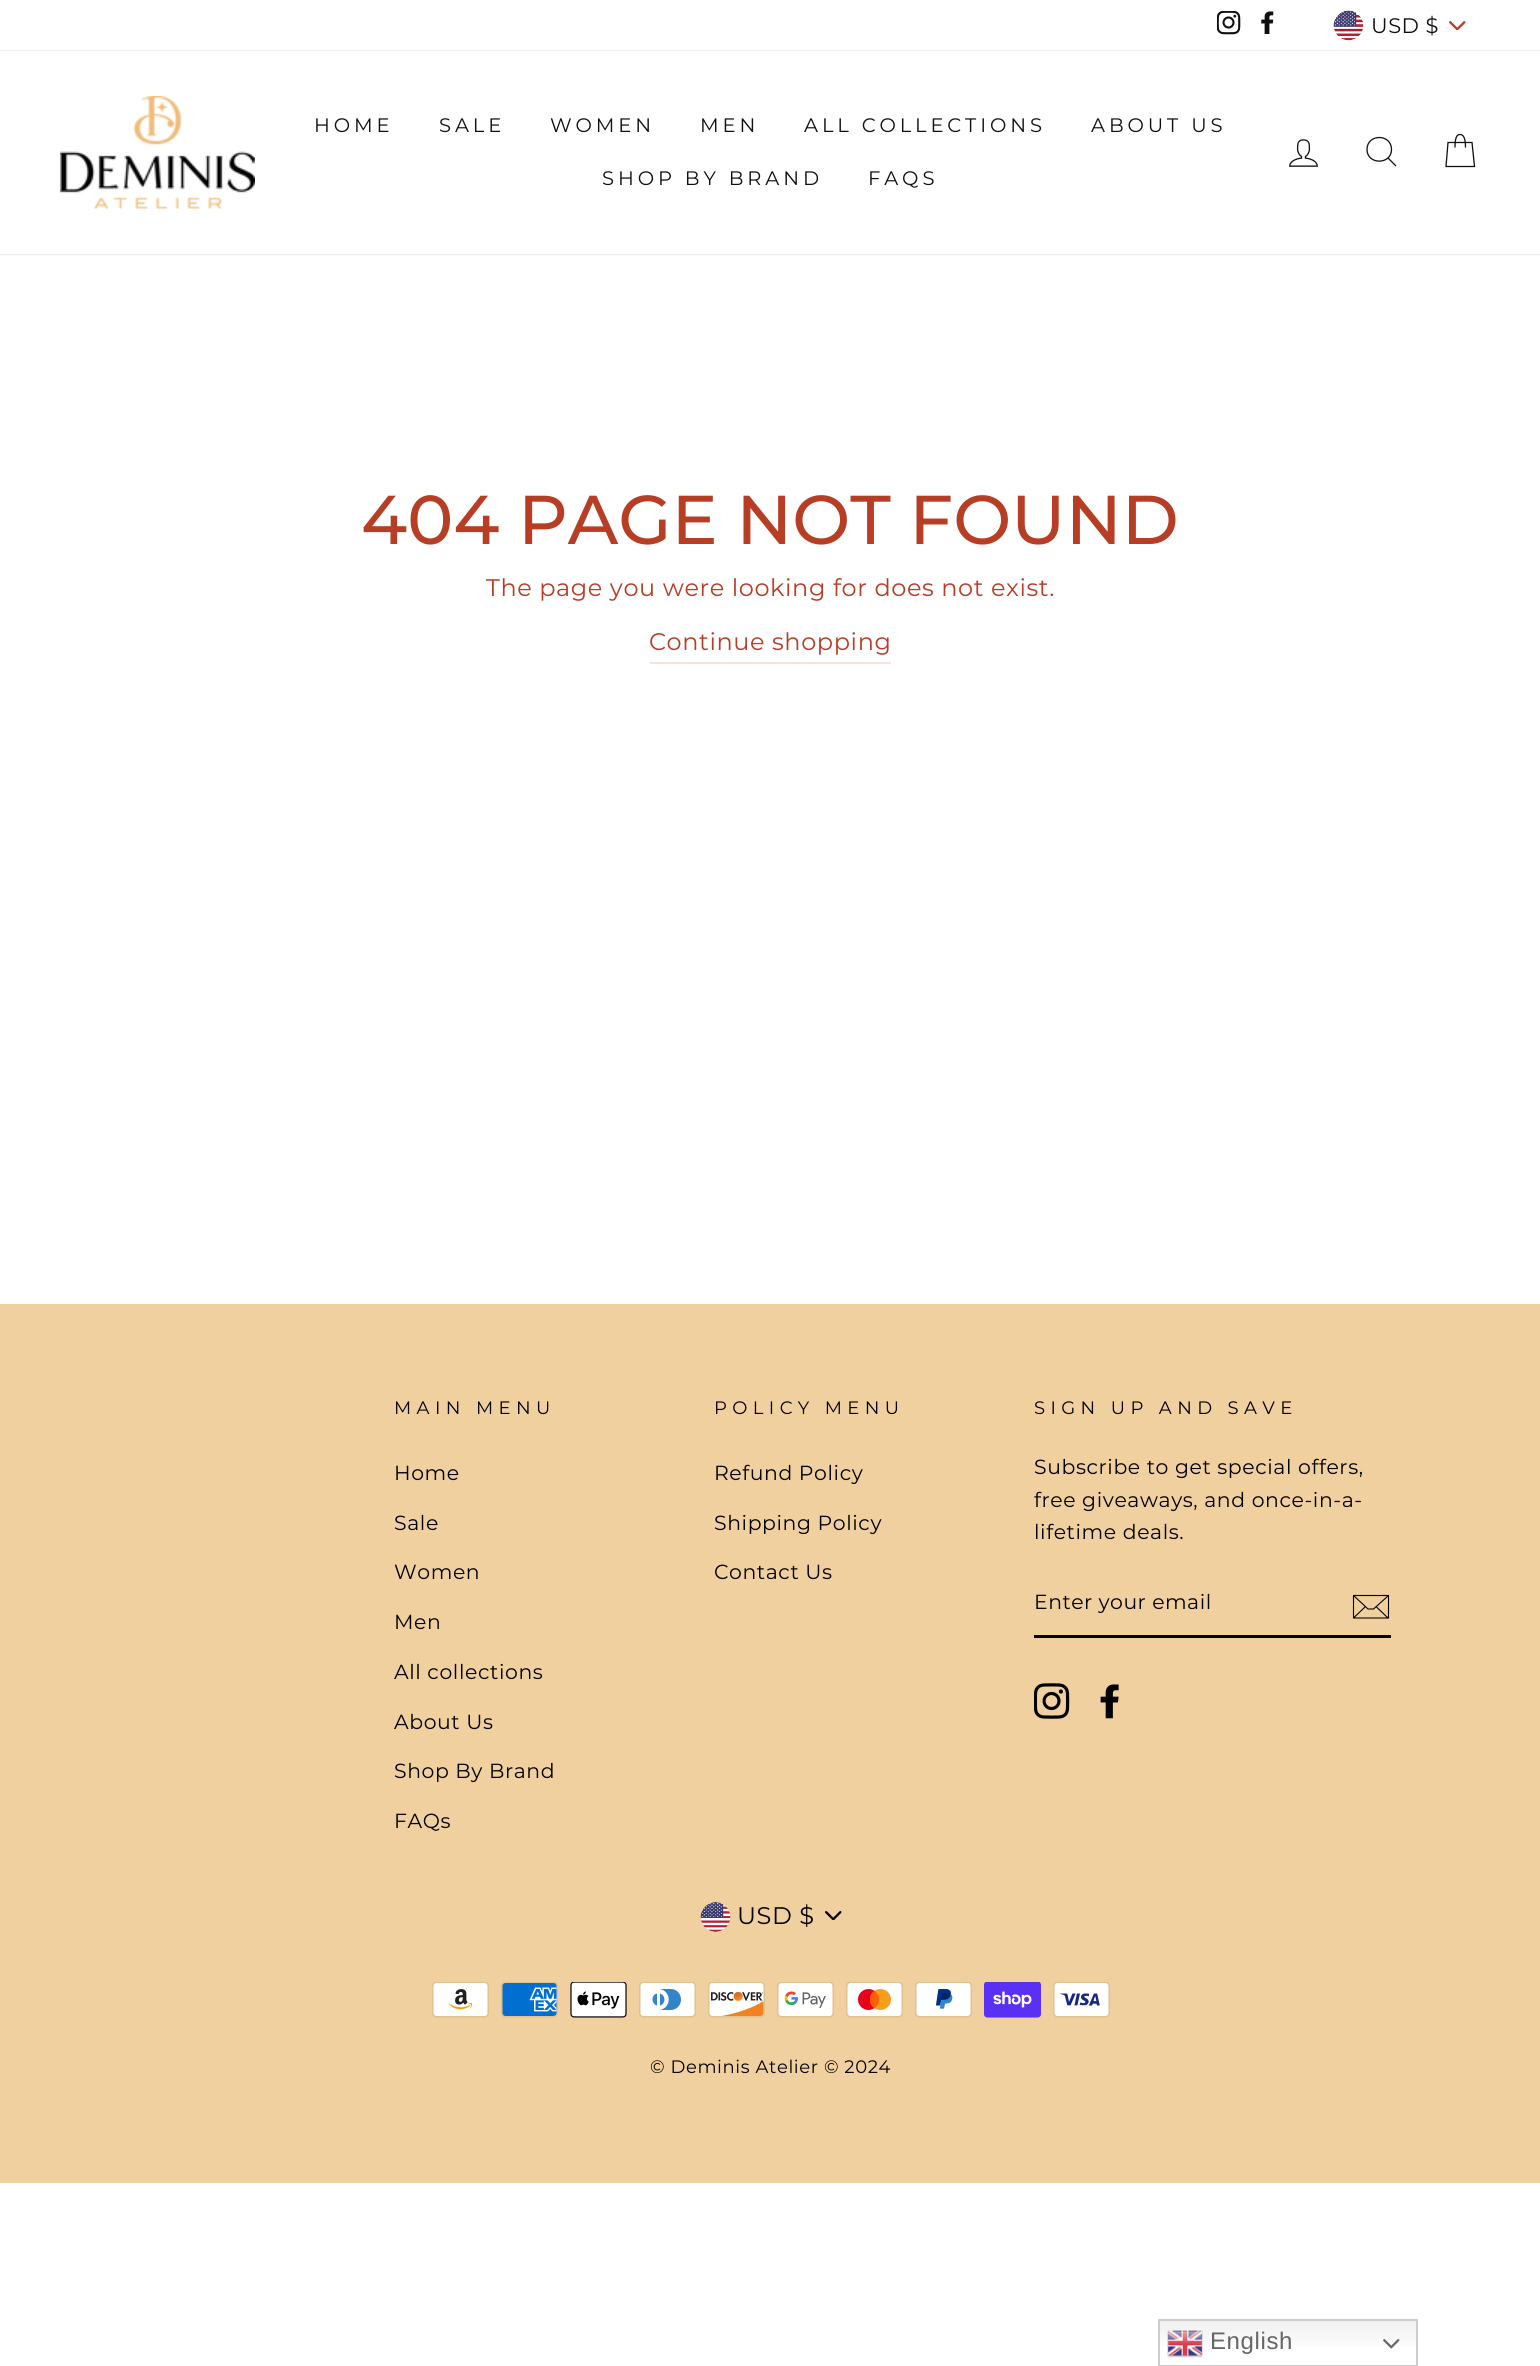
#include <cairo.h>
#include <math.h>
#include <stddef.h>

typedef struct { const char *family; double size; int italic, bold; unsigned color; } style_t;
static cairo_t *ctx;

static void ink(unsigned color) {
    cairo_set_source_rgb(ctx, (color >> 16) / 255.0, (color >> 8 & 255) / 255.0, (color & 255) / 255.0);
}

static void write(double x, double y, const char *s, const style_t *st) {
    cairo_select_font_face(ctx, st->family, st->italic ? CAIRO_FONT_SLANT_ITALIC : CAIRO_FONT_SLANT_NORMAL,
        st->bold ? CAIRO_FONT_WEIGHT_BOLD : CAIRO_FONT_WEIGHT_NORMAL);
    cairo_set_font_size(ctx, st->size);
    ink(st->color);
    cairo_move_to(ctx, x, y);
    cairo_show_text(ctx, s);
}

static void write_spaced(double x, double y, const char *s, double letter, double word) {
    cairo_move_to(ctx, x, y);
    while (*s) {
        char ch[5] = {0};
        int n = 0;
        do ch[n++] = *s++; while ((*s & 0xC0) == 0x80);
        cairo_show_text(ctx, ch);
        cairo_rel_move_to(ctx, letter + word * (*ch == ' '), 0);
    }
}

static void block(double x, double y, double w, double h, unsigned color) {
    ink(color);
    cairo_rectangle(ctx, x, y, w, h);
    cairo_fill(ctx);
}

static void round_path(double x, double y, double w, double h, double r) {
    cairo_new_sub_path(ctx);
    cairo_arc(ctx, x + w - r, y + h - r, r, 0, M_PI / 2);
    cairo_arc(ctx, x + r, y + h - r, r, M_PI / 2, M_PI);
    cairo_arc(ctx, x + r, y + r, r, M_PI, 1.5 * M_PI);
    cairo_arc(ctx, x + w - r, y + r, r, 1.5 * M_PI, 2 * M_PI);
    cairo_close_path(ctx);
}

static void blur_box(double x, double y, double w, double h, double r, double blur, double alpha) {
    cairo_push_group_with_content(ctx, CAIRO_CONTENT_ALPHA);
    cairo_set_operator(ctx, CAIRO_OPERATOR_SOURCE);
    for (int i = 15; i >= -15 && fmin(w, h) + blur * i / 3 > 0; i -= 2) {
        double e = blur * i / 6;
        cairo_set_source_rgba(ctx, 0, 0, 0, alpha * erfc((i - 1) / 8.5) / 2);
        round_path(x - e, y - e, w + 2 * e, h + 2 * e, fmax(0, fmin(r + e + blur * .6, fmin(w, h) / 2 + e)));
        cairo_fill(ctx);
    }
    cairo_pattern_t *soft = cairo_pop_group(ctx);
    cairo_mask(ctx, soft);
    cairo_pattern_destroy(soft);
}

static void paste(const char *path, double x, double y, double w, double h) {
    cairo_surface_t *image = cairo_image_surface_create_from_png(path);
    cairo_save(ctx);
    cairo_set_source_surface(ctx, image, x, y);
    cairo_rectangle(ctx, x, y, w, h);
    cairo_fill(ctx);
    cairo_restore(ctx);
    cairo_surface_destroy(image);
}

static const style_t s1 = {"Montserrat Medium", 69, 0, 0, 0xb73d25};

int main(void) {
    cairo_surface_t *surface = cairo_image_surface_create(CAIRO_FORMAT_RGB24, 1540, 2366);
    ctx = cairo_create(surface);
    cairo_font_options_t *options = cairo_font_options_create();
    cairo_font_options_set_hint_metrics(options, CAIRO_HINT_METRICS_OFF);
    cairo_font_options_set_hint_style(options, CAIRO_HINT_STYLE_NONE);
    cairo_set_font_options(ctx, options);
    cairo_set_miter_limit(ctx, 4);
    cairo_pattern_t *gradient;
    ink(0xffffff);
    cairo_paint(ctx);
    paste("pic1.png", 1217, 11, 24, 24);
    paste("pic2.png", 1261, 11, 13, 23);
    paste("pic3.png", 1449, 21, 17, 9);
    paste("pic4.png", 1333, 10, 31, 31);
    cairo_select_font_face(ctx, "Montserrat", CAIRO_FONT_SLANT_NORMAL, CAIRO_FONT_WEIGHT_NORMAL);
    cairo_set_font_size(ctx, 21);
    ink(0x101010);
    write_spaced(1371, 33, "USD $", 0.5, 0);
    ink(0x000000);
    blur_box(0, 51, 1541, 203, 0, 1, 0.2);
    block(0, 51, 1540, 203, 0xffffff);
    paste("pic5.png", 60, 96, 195, 113);
    cairo_set_font_size(ctx, 19.5);
    ink(0x101010);
    write_spaced(314, 132, "HOME", 3.9, 0);
    write_spaced(439, 132, "SALE", 3.9, 0);
    write_spaced(550, 132, "WOMEN", 3.9, 0);
    write_spaced(700, 132, "MEN", 3.9, 0);
    write_spaced(804, 132, "ALL COLLECTIONS", 3.9, 0);
    write_spaced(1091, 132, "ABOUT US", 3.9, 0);
    write_spaced(602, 185, "SHOP BY BRAND", 3.9, 0);
    write_spaced(868, 185, "FAQS", 3.9, 0);
    paste("pic6.png", 1289, 139, 29, 28);
    cairo_new_path(ctx);
    cairo_move_to(ctx, 1391.5, 149.5);
    cairo_curve_to(ctx, 1391.5, 165, 1367, 165, 1367, 149.5);
    cairo_curve_to(ctx, 1367, 133.5, 1391.5, 133.5, 1391.5, 149.5);
    cairo_close_path(ctx);
    cairo_move_to(ctx, 1396, 166);
    cairo_line_to(ctx, 1388, 158);
    cairo_set_line_width(ctx, 1.3);
    cairo_stroke(ctx);
    cairo_new_path(ctx);
    cairo_move_to(ctx, 1455, 147.5);
    cairo_curve_to(ctx, 1455, 137, 1457, 134.5, 1460, 134.5);
    cairo_curve_to(ctx, 1463, 134.5, 1465.5, 137, 1465.5, 147.5);
    cairo_move_to(ctx, 1448, 142.5);
    cairo_line_to(ctx, 1472, 142.5);
    cairo_line_to(ctx, 1474.5, 166.5);
    cairo_line_to(ctx, 1446, 166.5);
    cairo_close_path(ctx);
    cairo_stroke(ctx);
    write(361, 544, "404 PAGE NOT FOUND", &s1);
    cairo_select_font_face(ctx, "Montserrat", CAIRO_FONT_SLANT_NORMAL, CAIRO_FONT_WEIGHT_NORMAL);
    cairo_set_font_size(ctx, 24);
    write_spaced(486, 596, "The page you were looking for does not exist.", 0.6, 0);
    block(650, 662, 241, 2, 0xf4e2de);
    ink(0xb73d25);
    write_spaced(649, 650, "Continue shopping", 0.6, 0);
    block(0, 1304, 1540, 879, 0xf1d09f);
    cairo_set_font_size(ctx, 18);
    ink(0x000000);
    write_spaced(394, 1414, "MAIN MENU", 5.4, 0);
    cairo_set_font_size(ctx, 20.4);
    write_spaced(394, 1480, "Home", 0.6, 0);
    write_spaced(394, 1530, "Sale", 0.6, 0);
    write_spaced(394, 1579, "Women", 0.6, 0);
    write_spaced(394, 1629, "Men", 0.6, 0);
    write_spaced(394, 1679, "All collections", 0.6, 0);
    write_spaced(394, 1729, "About Us", 0.6, 0);
    write_spaced(394, 1778, "Shop By Brand", 0.6, 0);
    write_spaced(394, 1828, "FAQs", 0.6, 0);
    cairo_set_font_size(ctx, 18);
    write_spaced(714, 1414, "POLICY MENU", 5.4, 0);
    cairo_set_font_size(ctx, 20.4);
    write_spaced(714, 1480, "Refund Policy", 0.6, 0);
    write_spaced(714, 1530, "Shipping Policy", 0.6, 0);
    write_spaced(714, 1579, "Contact Us", 0.6, 0);
    cairo_set_font_size(ctx, 18);
    write_spaced(1034, 1414, "SIGN UP AND SAVE", 5.4, 0);
    cairo_set_font_size(ctx, 20.4);
    write_spaced(1034, 1474, "Subscribe to get special offers,", 0.6, 0);
    write_spaced(1034, 1507, "free giveaways, and once-in-a-", 0.6, 0);
    write_spaced(1034, 1539, "lifetime deals.", 0.6, 0);
    block(1034, 1635, 357, 3, 0x000000);
    write_spaced(1034, 1609, "Enter your email", 0.5, 0);
    cairo_new_path(ctx);
    cairo_move_to(ctx, 1388.5, 1618);
    cairo_line_to(ctx, 1353.5, 1618);
    cairo_line_to(ctx, 1353.5, 1595.5);
    cairo_line_to(ctx, 1388.5, 1595.5);
    cairo_close_path(ctx);
    cairo_move_to(ctx, 1353.5, 1595.5);
    cairo_line_to(ctx, 1368, 1609);
    cairo_line_to(ctx, 1373.5, 1609);
    cairo_line_to(ctx, 1388.5, 1595.5);
    cairo_move_to(ctx, 1365.5, 1606.5);
    cairo_line_to(ctx, 1354, 1617.5);
    cairo_move_to(ctx, 1388, 1618);
    cairo_line_to(ctx, 1376, 1606.5);
    cairo_set_line_width(ctx, 1.1);
    cairo_stroke(ctx);
    paste("pic7.png", 1034, 1683, 36, 36);
    paste("pic8.png", 1100, 1684, 19, 35);
    paste("pic9.png", 825, 1911, 17, 9);
    paste("pic10.png", 700, 1902, 31, 30);
    cairo_set_font_size(ctx, 24);
    write_spaced(737, 1924, "USD $", 0.6, 0);
    paste("pic11.png", 432, 1982, 57, 36);
    paste("pic12.png", 501, 1982, 57, 36);
    paste("pic13.png", 570, 1982, 57, 36);
    paste("pic14.png", 639, 1982, 57, 36);
    paste("pic15.png", 708, 1982, 57, 36);
    paste("pic16.png", 777, 1982, 57, 36);
    paste("pic17.png", 846, 1982, 57, 36);
    paste("pic18.png", 915, 1982, 57, 36);
    paste("pic19.png", 984, 1982, 57, 36);
    paste("pic20.png", 1053, 1982, 57, 36);
    cairo_set_font_size(ctx, 18);
    write_spaced(650, 2073, "© Deminis Atelier © 2024", 0.6, 0);
    gradient = cairo_pattern_create_linear(1288, 2319, 1288, 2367);
    cairo_pattern_add_color_stop_rgba(gradient, 0, 0.937, 0.937, 0.937, 1);
    cairo_pattern_add_color_stop_rgba(gradient, 0.7, 1, 1, 1, 1);
    cairo_set_source(ctx, gradient);
    cairo_pattern_destroy(gradient);
    cairo_rectangle(ctx, 1160, 2321, 256, 26);
    cairo_fill(ctx);
    cairo_rectangle(ctx, 1159, 2320, 258, 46);
    ink(0xcccccc);
    cairo_set_line_width(ctx, 2);
    cairo_stroke(ctx);
    paste("pic21.png", 1167, 2330, 36, 28);
    cairo_select_font_face(ctx, "Liberation Sans", CAIRO_FONT_SLANT_NORMAL, CAIRO_FONT_WEIGHT_NORMAL);
    cairo_set_font_size(ctx, 24);
    ink(0x666666);
    write_spaced(1210, 2349, "English", 0.6, 0);
    paste("pic22.png", 1383, 2339, 17, 10);
    cairo_surface_write_to_png(surface, "screenshot.png");
    cairo_font_options_destroy(options);
    cairo_destroy(ctx);
    cairo_surface_destroy(surface);
    return 0;
}
